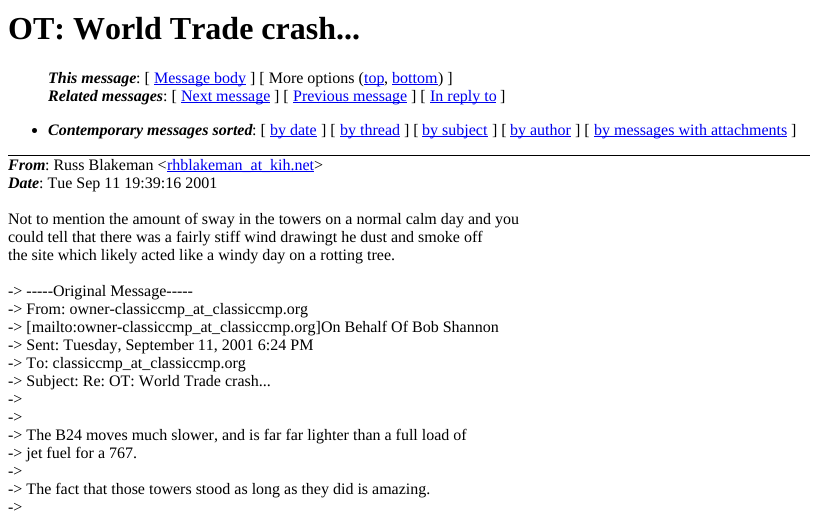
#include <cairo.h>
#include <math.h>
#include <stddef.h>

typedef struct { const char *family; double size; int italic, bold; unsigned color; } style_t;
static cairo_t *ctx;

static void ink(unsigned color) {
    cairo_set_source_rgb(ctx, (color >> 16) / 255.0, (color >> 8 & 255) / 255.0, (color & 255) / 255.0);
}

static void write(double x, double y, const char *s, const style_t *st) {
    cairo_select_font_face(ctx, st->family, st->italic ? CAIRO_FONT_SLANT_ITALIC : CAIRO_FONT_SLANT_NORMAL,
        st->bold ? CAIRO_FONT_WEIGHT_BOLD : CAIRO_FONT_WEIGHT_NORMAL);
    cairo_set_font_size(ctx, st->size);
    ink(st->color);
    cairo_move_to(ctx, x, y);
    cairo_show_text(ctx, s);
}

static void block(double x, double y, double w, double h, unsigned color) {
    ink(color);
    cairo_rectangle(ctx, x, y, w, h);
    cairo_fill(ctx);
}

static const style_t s1 = {"Liberation Serif", 32, 0, 1, 0x000000};
static const style_t s2 = {"Liberation Serif", 16, 1, 1, 0x000000};
static const style_t s3 = {"Liberation Serif", 16, 0, 0, 0x000000};
static const style_t s4 = {"Liberation Serif", 16, 0, 0, 0x0000ee};

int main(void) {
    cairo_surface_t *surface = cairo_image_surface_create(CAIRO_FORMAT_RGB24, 818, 511);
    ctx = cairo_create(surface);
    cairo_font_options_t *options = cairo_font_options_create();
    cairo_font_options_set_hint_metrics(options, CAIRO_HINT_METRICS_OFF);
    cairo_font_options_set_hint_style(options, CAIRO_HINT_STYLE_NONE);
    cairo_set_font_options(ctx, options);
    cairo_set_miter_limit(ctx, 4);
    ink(0xffffff);
    cairo_paint(ctx);
    block(8, 155, 802, 1, 0x000000);
    write(8, 39, "OT: World Trade crash...", &s1);
    write(48, 83, "This message", &s2);
    write(136, 83, ": [", &s3);
    block(154, 84, 92, 1, 0x0000ee);
    write(154, 83, "Message body", &s4);
    write(250, 83, "] [ More options (", &s3);
    block(364, 84, 20, 1, 0x0000ee);
    write(364, 83, "top", &s4);
    write(384, 83, ",", &s3);
    write(392, 83, "bottom", &s4);
    block(392, 84, 46, 1, 0x0000ee);
    write(438, 83, ") ]", &s3);
    write(48, 101, "Related messages", &s2);
    write(163, 101, ": [", &s3);
    block(181, 102, 89, 1, 0x0000ee);
    write(181, 101, "Next message", &s4);
    write(274, 101, "] [", &s3);
    block(293, 102, 114, 1, 0x0000ee);
    write(293, 101, "Previous message", &s4);
    write(411, 101, "] [", &s3);
    block(430, 102, 66, 1, 0x0000ee);
    write(430, 101, "In reply to", &s4);
    write(500, 101, "]", &s3);
    cairo_new_path(ctx);
    cairo_arc(ctx, 34.5, 130.5, 2.5, 0, 2 * M_PI);
    cairo_fill(ctx);
    write(48, 135, "Contemporary messages sorted", &s2);
    write(252, 135, ": [", &s3);
    block(270, 136, 47, 1, 0x0000ee);
    write(270, 135, "by date", &s4);
    write(321, 135, "] [", &s3);
    block(340, 136, 60, 1, 0x0000ee);
    write(340, 135, "by thread", &s4);
    write(404, 135, "] [", &s3);
    block(422, 136, 66, 1, 0x0000ee);
    write(422, 135, "by subject", &s4);
    write(492, 135, "] [", &s3);
    block(510, 136, 61, 1, 0x0000ee);
    write(510, 135, "by author", &s4);
    write(575, 135, "] [", &s3);
    block(594, 136, 193, 1, 0x0000ee);
    write(594, 135, "by messages with attachments", &s4);
    write(791, 135, "]", &s3);
    write(8, 170, "From", &s2);
    write(45, 170, ": Russ Blakeman <", &s3);
    block(167, 171, 147, 1, 0x0000ee);
    write(167, 170, "rhblakeman_at_kih.net", &s4);
    write(314, 170, ">", &s3);
    write(8, 188, "Date", &s2);
    write(39, 188, ": Tue Sep 11 19:39:16 2001", &s3);
    write(8, 224, "Not to mention the amount of sway in the towers on a normal calm day and you", &s3);
    write(8, 242, "could tell that there was a fairly stiff wind drawingt he dust and smoke off", &s3);
    write(8, 260, "the site which likely acted like a windy day on a rotting tree.", &s3);
    write(8, 296, "-> -----Original Message-----", &s3);
    write(8, 314, "-> From: owner-classiccmp_at_classiccmp.org", &s3);
    write(8, 332, "-> [mailto:owner-classiccmp_at_classiccmp.org]On Behalf Of Bob Shannon", &s3);
    write(8, 350, "-> Sent: Tuesday, September 11, 2001 6:24 PM", &s3);
    write(8, 368, "-> To: classiccmp_at_classiccmp.org", &s3);
    write(8, 386, "-> Subject: Re: OT: World Trade crash...", &s3);
    write(8, 404, "->", &s3);
    write(8, 422, "->", &s3);
    write(8, 440, "-> The B24 moves much slower, and is far far lighter than a full load of", &s3);
    write(8, 458, "-> jet fuel for a 767.", &s3);
    write(8, 476, "->", &s3);
    write(8, 494, "-> The fact that those towers stood as long as they did is amazing.", &s3);
    write(8, 512, "->", &s3);
    cairo_surface_write_to_png(surface, "screenshot.png");
    cairo_font_options_destroy(options);
    cairo_destroy(ctx);
    cairo_surface_destroy(surface);
    return 0;
}
